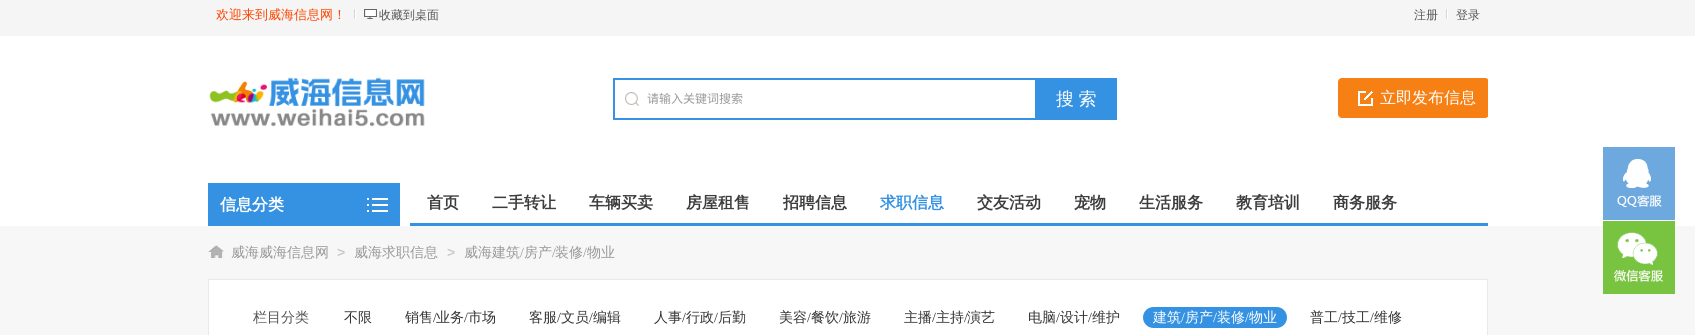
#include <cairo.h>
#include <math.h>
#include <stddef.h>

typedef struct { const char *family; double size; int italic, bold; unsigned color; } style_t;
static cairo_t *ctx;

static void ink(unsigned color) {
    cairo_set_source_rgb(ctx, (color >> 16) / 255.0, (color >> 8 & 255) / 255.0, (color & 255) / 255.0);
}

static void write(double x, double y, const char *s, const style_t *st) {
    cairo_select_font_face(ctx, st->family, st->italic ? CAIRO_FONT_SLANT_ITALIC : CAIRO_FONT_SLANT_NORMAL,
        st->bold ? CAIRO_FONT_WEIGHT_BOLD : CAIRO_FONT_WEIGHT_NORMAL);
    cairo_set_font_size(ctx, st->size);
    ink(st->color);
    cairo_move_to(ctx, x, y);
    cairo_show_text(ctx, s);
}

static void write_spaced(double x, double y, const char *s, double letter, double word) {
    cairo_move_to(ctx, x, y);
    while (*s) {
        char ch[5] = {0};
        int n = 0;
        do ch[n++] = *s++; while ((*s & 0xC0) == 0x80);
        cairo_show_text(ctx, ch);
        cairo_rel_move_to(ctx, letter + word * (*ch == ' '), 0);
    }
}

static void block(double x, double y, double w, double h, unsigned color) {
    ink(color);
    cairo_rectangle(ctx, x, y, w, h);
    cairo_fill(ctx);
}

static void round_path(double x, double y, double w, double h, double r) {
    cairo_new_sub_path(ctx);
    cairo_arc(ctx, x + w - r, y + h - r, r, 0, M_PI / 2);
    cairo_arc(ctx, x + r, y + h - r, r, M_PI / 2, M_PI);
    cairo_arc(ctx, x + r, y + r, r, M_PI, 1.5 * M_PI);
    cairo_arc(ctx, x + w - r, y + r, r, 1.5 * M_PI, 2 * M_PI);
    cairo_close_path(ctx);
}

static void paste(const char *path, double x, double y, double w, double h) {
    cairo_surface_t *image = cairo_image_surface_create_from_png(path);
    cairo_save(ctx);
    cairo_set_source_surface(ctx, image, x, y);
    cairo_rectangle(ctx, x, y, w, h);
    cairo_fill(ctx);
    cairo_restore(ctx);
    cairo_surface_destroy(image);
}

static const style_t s1 = {"WenQuanYi Zen Hei Medium", 13, 0, 0, 0xff4500};
static const style_t s2 = {"WenQuanYi Zen Hei Medium", 12, 0, 0, 0x555555};
static const style_t s3 = {"Noto Sans CJK SC", 12, 0, 0, 0x999999};
static const style_t s4 = {"WenQuanYi Zen Hei Medium", 16, 0, 0, 0xffffff};
static const style_t s5 = {"WenQuanYi Zen Hei", 16, 0, 1, 0xffffff};
static const style_t s6 = {"WenQuanYi Zen Hei", 16, 0, 1, 0x3d3d3d};
static const style_t s7 = {"WenQuanYi Zen Hei", 16, 0, 1, 0x3592e2};
static const style_t s8 = {"WenQuanYi Zen Hei Medium", 14, 0, 0, 0x999999};
static const style_t s9 = {"Liberation Sans", 14, 0, 1, 0xcacaca};
static const style_t s10 = {"Liberation Serif", 14, 0, 0, 0x999999};
static const style_t s11 = {"WenQuanYi Zen Hei Medium", 14, 0, 0, 0x555555};
static const style_t s12 = {"WenQuanYi Zen Hei Medium", 14, 0, 0, 0x333333};
static const style_t s13 = {"Liberation Serif", 14, 0, 0, 0x333333};
static const style_t s14 = {"WenQuanYi Zen Hei Medium", 14, 0, 0, 0xffffff};
static const style_t s15 = {"Liberation Serif", 14, 0, 0, 0xffffff};

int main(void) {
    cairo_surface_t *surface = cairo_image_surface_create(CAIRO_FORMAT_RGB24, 1695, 335);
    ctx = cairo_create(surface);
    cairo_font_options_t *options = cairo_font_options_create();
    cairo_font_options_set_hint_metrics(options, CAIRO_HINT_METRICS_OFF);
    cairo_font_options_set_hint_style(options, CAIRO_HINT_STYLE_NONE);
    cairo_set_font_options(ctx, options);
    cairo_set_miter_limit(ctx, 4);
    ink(0xffffff);
    cairo_paint(ctx);
    block(0, 0, 1695, 36, 0xf5f5f5);
    write(216, 19, "欢迎来到威海信息网！", &s1);
    block(355, 9, 1, 10, 0xffffff);
    block(354, 9, 1, 10, 0xd4d4d4);
    paste("pic1.png", 364, 9, 13, 10);
    write(379, 19, "收藏到桌面", &s2);
    write(1414, 19, "注册", &s2);
    block(1447, 9, 1, 10, 0xffffff);
    block(1446, 9, 1, 10, 0xd4d4d4);
    write(1456, 19, "登录", &s2);
    paste("pic2.png", 209, 77, 216, 50);
    paste("pic3.png", 625, 92, 14, 14);
    cairo_rectangle(ctx, 614, 79, 422, 40);
    ink(0x3592e2);
    cairo_stroke(ctx);
    write(647, 103, "请输入关键词搜索", &s3);
    block(1037, 78, 80, 42, 0x3592e2);
    cairo_select_font_face(ctx, "WenQuanYi Zen Hei Medium", CAIRO_FONT_SLANT_NORMAL, CAIRO_FONT_WEIGHT_NORMAL);
    cairo_set_font_size(ctx, 18);
    ink(0xffffff);
    write_spaced(1056, 105, "搜 索", 0, -1);
    cairo_save(ctx);
    cairo_rectangle(ctx, 208, 53, 1280, 120);
    cairo_clip(ctx);
    ink(0xf78015);
    round_path(1338, 78, 151, 40, 4);
    cairo_fill(ctx);
    cairo_restore(ctx);
    paste("pic4.png", 1358, 91, 15, 15);
    write(1380, 103, "立即发布信息", &s4);
    cairo_rectangle(ctx, 209, 184, 190, 41);
    ink(0x3592e2);
    cairo_stroke(ctx);
    block(210, 185, 188, 39, 0x3592e2);
    paste("pic5.png", 367, 198, 21, 14);
    write(220, 210, "信息分类", &s5);
    block(410, 223, 1078, 3, 0x3592e2);
    write(427, 208, "首页", &s6);
    write(492, 208, "二手转让", &s6);
    write(589, 208, "车辆买卖", &s6);
    write(686, 208, "房屋租售", &s6);
    write(783, 208, "招聘信息", &s6);
    write(880, 208, "求职信息", &s7);
    write(977, 208, "交友活动", &s6);
    write(1074, 208, "宠物", &s6);
    write(1139, 208, "生活服务", &s6);
    write(1236, 208, "教育培训", &s6);
    write(1333, 208, "商务服务", &s6);
    block(0, 226, 1695, 109, 0xf7f7f7);
    paste("pic6.png", 208, 245, 16, 13);
    write(231, 257, "威海威海信息网", &s8);
    write(337, 257, ">", &s9);
    write(354, 257, "威海求职信息", &s8);
    write(447, 257, ">", &s9);
    write(464, 257, "威海建筑", &s8);
    write(520, 257, "/", &s10);
    write(524, 257, "房产", &s8);
    write(552, 257, "/", &s10);
    write(555, 257, "装修", &s8);
    write(583, 257, "/", &s10);
    write(587, 257, "物业", &s8);
    block(1603, 147, 72, 73, 0x6da9de);
    paste("pic7.png", 1617, 159, 45, 48);
    block(1603, 221, 72, 73, 0x78c340);
    paste("pic8.png", 1614, 232, 49, 50);
    ink(0xffffff);
    cairo_rectangle(ctx, 208.5, 279.5, 1279, 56);
    cairo_fill_preserve(ctx);
    ink(0xe9e9e9);
    cairo_set_line_width(ctx, 1);
    cairo_stroke(ctx);
    write(253, 322, "栏目分类", &s11);
    write(344, 322, "不限", &s12);
    write(405, 322, "销售", &s12);
    write(433, 322, "/", &s13);
    write(436, 322, "业务", &s12);
    write(464, 322, "/", &s13);
    write(468, 322, "市场", &s12);
    write(529, 322, "客服", &s12);
    write(557, 322, "/", &s13);
    write(561, 322, "文员", &s12);
    write(589, 322, "/", &s13);
    write(593, 322, "编辑", &s12);
    write(654, 322, "人事", &s12);
    write(682, 322, "/", &s13);
    write(686, 322, "行政", &s12);
    write(714, 322, "/", &s13);
    write(718, 322, "后勤", &s12);
    write(779, 322, "美容", &s12);
    write(807, 322, "/", &s13);
    write(811, 322, "餐饮", &s12);
    write(839, 322, "/", &s13);
    write(843, 322, "旅游", &s12);
    write(904, 322, "主播", &s12);
    write(932, 322, "/", &s13);
    write(936, 322, "主持", &s12);
    write(964, 322, "/", &s13);
    write(967, 322, "演艺", &s12);
    write(1028, 322, "电脑", &s12);
    write(1056, 322, "/", &s13);
    write(1060, 322, "设计", &s12);
    write(1088, 322, "/", &s13);
    write(1092, 322, "维护", &s12);
    ink(0x3592e2);
    round_path(1143, 307, 144, 21, 10.5);
    cairo_fill(ctx);
    write(1153, 322, "建筑", &s14);
    write(1181, 322, "/", &s15);
    write(1185, 322, "房产", &s14);
    write(1213, 322, "/", &s15);
    write(1217, 322, "装修", &s14);
    write(1245, 322, "/", &s15);
    write(1249, 322, "物业", &s14);
    write(1310, 322, "普工", &s12);
    write(1338, 322, "/", &s13);
    write(1342, 322, "技工", &s12);
    write(1370, 322, "/", &s13);
    write(1374, 322, "维修", &s12);
    cairo_surface_write_to_png(surface, "screenshot.png");
    cairo_font_options_destroy(options);
    cairo_destroy(ctx);
    cairo_surface_destroy(surface);
    return 0;
}
